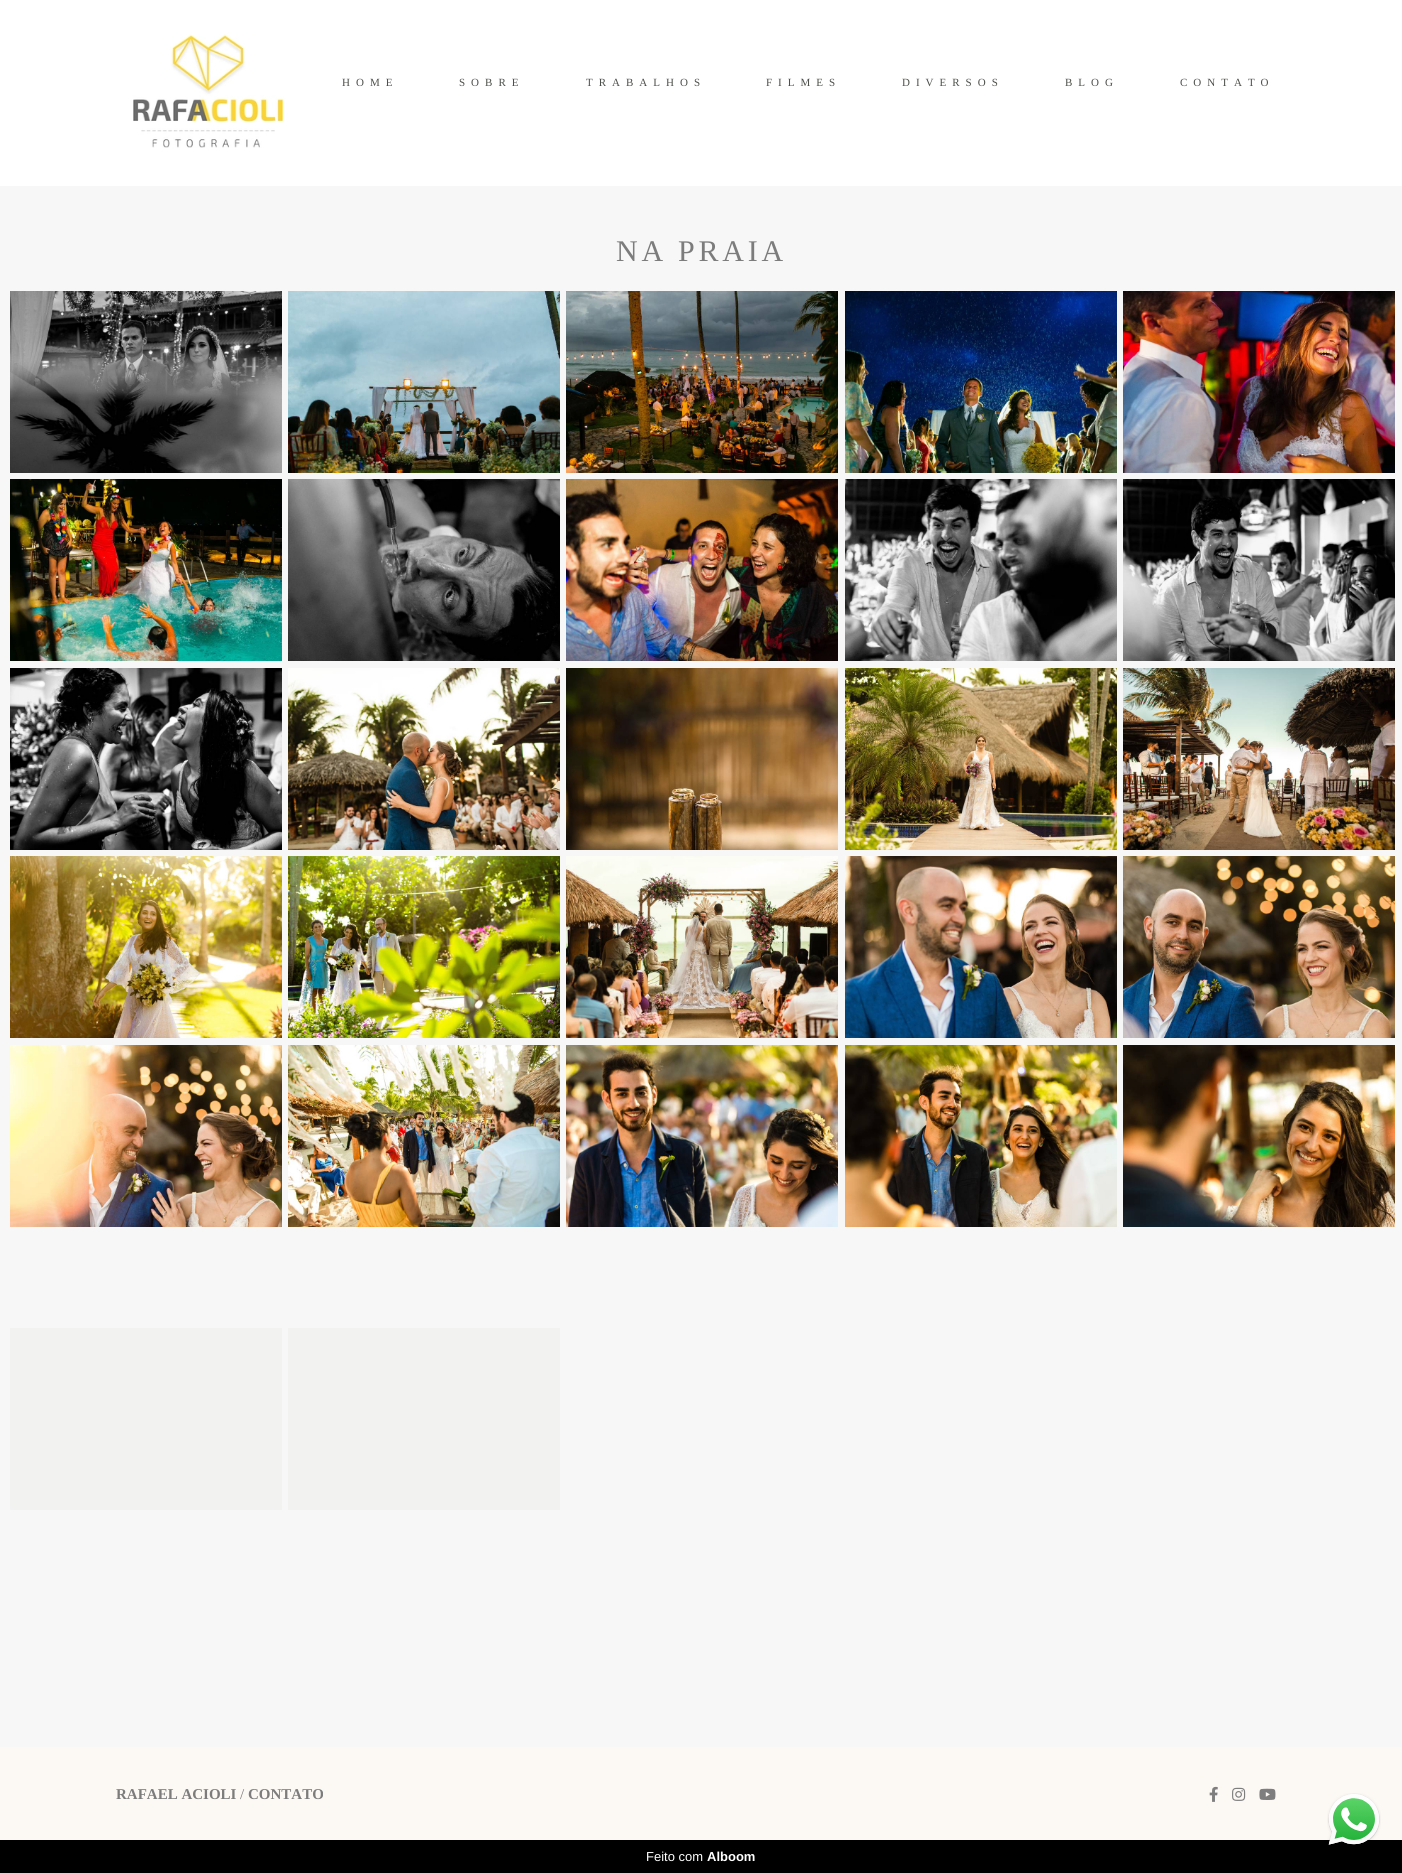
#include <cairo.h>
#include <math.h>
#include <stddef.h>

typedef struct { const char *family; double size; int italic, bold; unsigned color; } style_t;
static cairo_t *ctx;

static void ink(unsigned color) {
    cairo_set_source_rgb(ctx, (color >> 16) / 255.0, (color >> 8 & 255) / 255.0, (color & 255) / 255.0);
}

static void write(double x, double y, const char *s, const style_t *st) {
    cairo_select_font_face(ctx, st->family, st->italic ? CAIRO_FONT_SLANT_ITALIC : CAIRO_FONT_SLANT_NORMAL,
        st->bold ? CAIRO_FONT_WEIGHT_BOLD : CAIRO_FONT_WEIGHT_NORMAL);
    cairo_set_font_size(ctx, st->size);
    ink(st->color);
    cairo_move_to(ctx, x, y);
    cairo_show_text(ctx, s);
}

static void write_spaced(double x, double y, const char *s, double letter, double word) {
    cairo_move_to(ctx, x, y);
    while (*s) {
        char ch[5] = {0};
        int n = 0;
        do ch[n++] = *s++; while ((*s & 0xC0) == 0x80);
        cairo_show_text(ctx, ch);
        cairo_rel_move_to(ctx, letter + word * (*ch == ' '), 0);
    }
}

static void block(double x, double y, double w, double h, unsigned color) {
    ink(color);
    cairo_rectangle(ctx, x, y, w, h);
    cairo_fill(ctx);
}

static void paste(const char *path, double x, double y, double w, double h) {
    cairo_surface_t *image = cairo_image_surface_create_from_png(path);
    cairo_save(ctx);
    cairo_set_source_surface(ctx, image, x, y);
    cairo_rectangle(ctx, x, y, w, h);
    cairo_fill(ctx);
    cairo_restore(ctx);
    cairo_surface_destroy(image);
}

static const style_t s1 = {"Liberation Serif", 15, 0, 1, 0x7c7c7c};
static const style_t s2 = {"Liberation Serif", 15, 0, 0, 0x7c7c7c};
static const style_t s3 = {"Liberation Sans", 13, 0, 0, 0xffffff};
static const style_t s4 = {"Liberation Sans", 13, 0, 1, 0xffffff};

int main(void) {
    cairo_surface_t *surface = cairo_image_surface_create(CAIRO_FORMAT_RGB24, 1402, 1873);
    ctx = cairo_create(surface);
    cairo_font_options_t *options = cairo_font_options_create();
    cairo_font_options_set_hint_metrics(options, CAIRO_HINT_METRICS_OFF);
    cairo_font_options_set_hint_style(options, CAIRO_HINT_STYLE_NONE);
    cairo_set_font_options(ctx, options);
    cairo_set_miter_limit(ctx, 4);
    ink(0xf7f7f7);
    cairo_paint(ctx);
    block(0, 0, 1402, 186, 0xffffff);
    paste("pic1.png", 133, 34, 151, 114);
    cairo_select_font_face(ctx, "Liberation Serif", CAIRO_FONT_SLANT_NORMAL, CAIRO_FONT_WEIGHT_NORMAL);
    cairo_set_font_size(ctx, 11);
    ink(0x4d504a);
    write_spaced(342, 86, "HOME", 6, 0);
    write_spaced(459, 86, "SOBRE", 6, 0);
    write_spaced(586, 86, "TRABALHOS", 6, 0);
    write_spaced(766, 86, "FILMES", 6, 0);
    write_spaced(902, 86, "DIVERSOS", 6, 0);
    write_spaced(1065, 86, "BLOG", 6, 0);
    write_spaced(1180, 86, "CONTATO", 6, 0);
    cairo_set_font_size(ctx, 30);
    ink(0x7c7c7c);
    write_spaced(616, 261, "NA PRAIA", 3.75, 0);
    paste("pic2.png", 10, 291, 272, 182);
    paste("pic3.png", 288, 291, 272, 182);
    paste("pic4.png", 566, 291, 272, 182);
    paste("pic5.png", 845, 291, 272, 182);
    paste("pic6.png", 1123, 291, 272, 182);
    paste("pic7.png", 10, 479, 272, 182);
    paste("pic8.png", 288, 479, 272, 182);
    paste("pic9.png", 566, 479, 272, 182);
    paste("pic10.png", 845, 479, 272, 182);
    paste("pic11.png", 1123, 479, 272, 182);
    paste("pic12.png", 10, 668, 272, 182);
    paste("pic13.png", 288, 668, 272, 182);
    paste("pic14.png", 566, 668, 272, 182);
    paste("pic15.png", 845, 668, 272, 182);
    paste("pic16.png", 1123, 668, 272, 182);
    paste("pic17.png", 10, 856, 272, 182);
    paste("pic18.png", 288, 856, 272, 182);
    paste("pic19.png", 566, 856, 272, 182);
    paste("pic20.png", 845, 856, 272, 182);
    paste("pic21.png", 1123, 856, 272, 182);
    paste("pic22.png", 10, 1045, 272, 182);
    paste("pic23.png", 288, 1045, 272, 182);
    paste("pic24.png", 566, 1045, 272, 182);
    paste("pic25.png", 845, 1045, 272, 182);
    paste("pic26.png", 1123, 1045, 272, 182);
    block(10, 1328, 272, 182, 0xf2f2f1);
    block(288, 1328, 272, 182, 0xf2f2f1);
    block(0, 1747, 1402, 93, 0xfcf9f5);
    write(116, 1799, "RAFAEL ACIOLI", &s1);
    write(240, 1799, "/", &s2);
    write(248, 1799, "CONTATO", &s1);
    paste("pic27.png", 1209, 1786, 9, 16);
    paste("pic28.png", 1232, 1787, 14, 14);
    paste("pic29.png", 1259, 1788, 17, 12);
    block(0, 1840, 1402, 33, 0x000000);
    paste("pic30.png", 1327, 1793, 54, 52);
    write(646, 1861, "Feito com", &s3);
    write(707, 1861, "Alboom", &s4);
    cairo_surface_write_to_png(surface, "screenshot.png");
    cairo_font_options_destroy(options);
    cairo_destroy(ctx);
    cairo_surface_destroy(surface);
    return 0;
}
